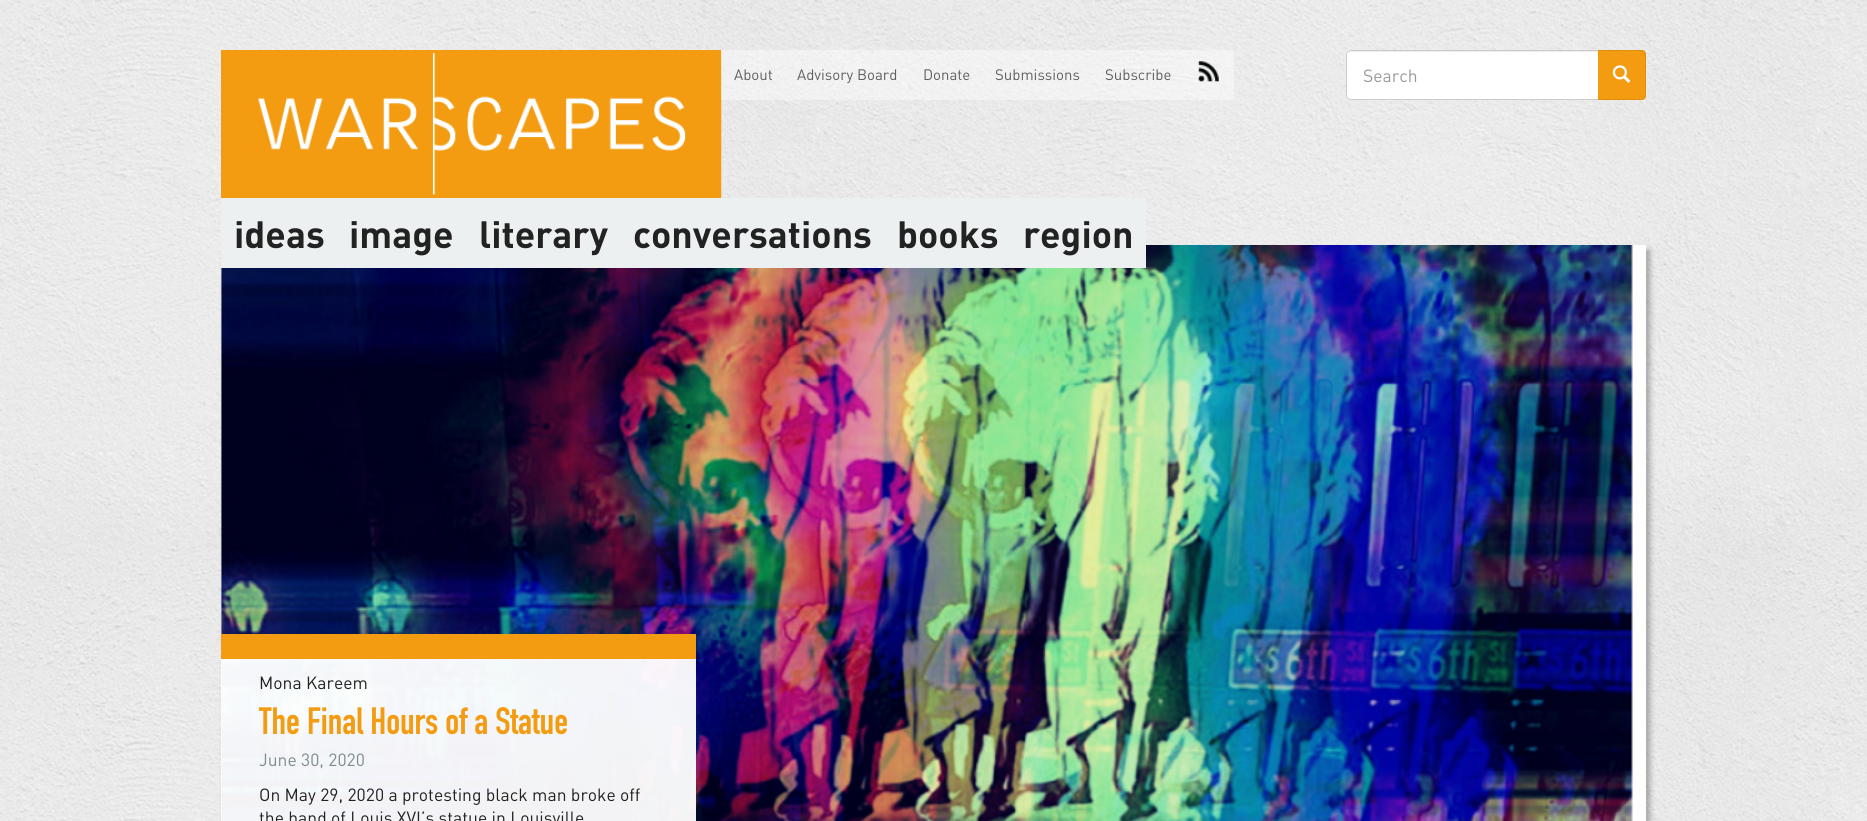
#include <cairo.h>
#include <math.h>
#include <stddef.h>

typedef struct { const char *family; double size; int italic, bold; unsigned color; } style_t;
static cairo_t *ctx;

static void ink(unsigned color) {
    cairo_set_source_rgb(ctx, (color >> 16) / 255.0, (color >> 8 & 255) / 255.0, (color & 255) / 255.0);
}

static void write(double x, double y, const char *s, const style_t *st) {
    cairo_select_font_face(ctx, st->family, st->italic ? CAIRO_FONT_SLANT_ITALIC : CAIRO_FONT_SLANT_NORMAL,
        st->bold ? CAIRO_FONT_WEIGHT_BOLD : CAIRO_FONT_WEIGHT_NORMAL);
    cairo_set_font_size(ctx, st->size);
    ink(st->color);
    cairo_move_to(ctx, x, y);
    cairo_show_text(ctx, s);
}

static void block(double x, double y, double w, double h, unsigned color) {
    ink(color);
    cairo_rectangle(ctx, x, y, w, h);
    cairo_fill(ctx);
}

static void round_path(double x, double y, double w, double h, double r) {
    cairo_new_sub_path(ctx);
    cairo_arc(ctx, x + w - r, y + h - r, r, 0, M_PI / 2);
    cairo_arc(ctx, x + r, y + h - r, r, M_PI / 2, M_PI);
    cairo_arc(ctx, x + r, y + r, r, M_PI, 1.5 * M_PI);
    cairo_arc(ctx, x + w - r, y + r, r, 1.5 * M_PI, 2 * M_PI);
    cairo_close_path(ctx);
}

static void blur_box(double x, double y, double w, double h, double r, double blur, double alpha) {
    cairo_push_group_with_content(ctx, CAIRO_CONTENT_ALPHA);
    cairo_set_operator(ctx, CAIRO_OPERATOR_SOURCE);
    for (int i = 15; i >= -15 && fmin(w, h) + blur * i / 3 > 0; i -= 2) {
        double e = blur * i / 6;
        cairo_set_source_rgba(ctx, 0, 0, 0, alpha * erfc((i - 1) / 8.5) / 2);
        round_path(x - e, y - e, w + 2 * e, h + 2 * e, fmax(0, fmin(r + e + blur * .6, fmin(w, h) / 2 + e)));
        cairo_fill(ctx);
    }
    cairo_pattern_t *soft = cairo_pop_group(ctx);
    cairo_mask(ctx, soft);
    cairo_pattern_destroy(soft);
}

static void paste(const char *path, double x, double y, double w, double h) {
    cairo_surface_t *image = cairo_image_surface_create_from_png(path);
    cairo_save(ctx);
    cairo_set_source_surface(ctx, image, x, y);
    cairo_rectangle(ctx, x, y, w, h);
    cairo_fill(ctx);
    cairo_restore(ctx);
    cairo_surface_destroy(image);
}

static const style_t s1 = {"DIN", 17.5, 0, 0, 0x999999};
static const style_t s2 = {"DIN", 37.5, 0, 1, 0x222222};
static const style_t s3 = {"DIN", 15, 0, 0, 0x5e6060};
static const style_t s4 = {"DIN", 17.5, 0, 0, 0x222222};
static const style_t s5 = {"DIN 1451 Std", 37.5, 0, 0, 0xf39c12};
static const style_t s6 = {"DIN", 17.5, 0, 0, 0x7f8c8d};

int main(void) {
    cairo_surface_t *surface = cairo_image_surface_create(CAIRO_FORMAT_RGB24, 1867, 821);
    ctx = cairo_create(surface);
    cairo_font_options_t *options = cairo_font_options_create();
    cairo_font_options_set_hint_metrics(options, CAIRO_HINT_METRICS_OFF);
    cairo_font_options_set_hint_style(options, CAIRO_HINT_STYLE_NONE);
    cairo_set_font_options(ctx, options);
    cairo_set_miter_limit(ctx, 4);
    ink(0xffffff);
    cairo_paint(ctx);
    paste("pic1.png", 0, 0, 1867, 821);
    block(221, 50, 500, 148, 0xf39c12);
    paste("pic2.png", 258, 50, 464, 148);
    ink(0xffffff);
    cairo_new_path(ctx);
    cairo_move_to(ctx, 1351, 50);
    cairo_line_to(ctx, 1599, 50);
    cairo_line_to(ctx, 1599, 100);
    cairo_line_to(ctx, 1351, 100);
    cairo_curve_to(ctx, 1348, 100, 1346, 98, 1346, 95);
    cairo_line_to(ctx, 1346, 55);
    cairo_curve_to(ctx, 1346, 52, 1348, 50, 1351, 50);
    cairo_close_path(ctx);
    cairo_fill(ctx);
    ink(0xececec);
    cairo_new_path(ctx);
    cairo_move_to(ctx, 1351, 52);
    cairo_line_to(ctx, 1598, 52);
    cairo_line_to(ctx, 1598, 51);
    cairo_line_to(ctx, 1352, 51);
    cairo_curve_to(ctx, 1350, 51, 1348, 53, 1348, 55);
    cairo_line_to(ctx, 1348, 56);
    cairo_curve_to(ctx, 1348, 54, 1349, 52, 1351, 52);
    cairo_close_path(ctx);
    cairo_fill(ctx);
    cairo_new_path(ctx);
    cairo_move_to(ctx, 1351, 50.5);
    cairo_line_to(ctx, 1598.5, 50.5);
    cairo_line_to(ctx, 1598.5, 99.5);
    cairo_line_to(ctx, 1351, 99.5);
    cairo_curve_to(ctx, 1348.5, 99.5, 1346.5, 97.5, 1346.5, 95);
    cairo_line_to(ctx, 1346.5, 55);
    cairo_curve_to(ctx, 1346.5, 52.5, 1348.5, 50.5, 1351, 50.5);
    cairo_close_path(ctx);
    ink(0xcccccc);
    cairo_set_line_width(ctx, 1);
    cairo_stroke(ctx);
    write(1363, 82, "Search", &s1);
    ink(0xf39c12);
    cairo_new_path(ctx);
    cairo_move_to(ctx, 1598, 50);
    cairo_line_to(ctx, 1641, 50);
    cairo_curve_to(ctx, 1644, 50, 1646, 52, 1646, 55);
    cairo_line_to(ctx, 1646, 95);
    cairo_curve_to(ctx, 1646, 98, 1644, 100, 1641, 100);
    cairo_line_to(ctx, 1598, 100);
    cairo_close_path(ctx);
    cairo_fill(ctx);
    ink(0xe08e0b);
    cairo_set_fill_rule(ctx, CAIRO_FILL_RULE_EVEN_ODD);
    cairo_new_path(ctx);
    cairo_move_to(ctx, 1598, 50);
    cairo_line_to(ctx, 1641, 50);
    cairo_curve_to(ctx, 1644, 50, 1646, 52, 1646, 55);
    cairo_line_to(ctx, 1646, 95);
    cairo_curve_to(ctx, 1646, 98, 1644, 100, 1641, 100);
    cairo_line_to(ctx, 1598, 100);
    cairo_close_path(ctx);
    cairo_move_to(ctx, 1598, 51);
    cairo_line_to(ctx, 1641, 51);
    cairo_curve_to(ctx, 1643, 51, 1645, 53, 1645, 55);
    cairo_line_to(ctx, 1645, 95);
    cairo_curve_to(ctx, 1645, 97, 1643, 99, 1641, 99);
    cairo_line_to(ctx, 1598, 99);
    cairo_close_path(ctx);
    cairo_fill(ctx);
    paste("pic3.png", 1612, 65, 19, 18);
    ink(0x000000);
    blur_box(225, 250, 1425, 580, 0, 3, 0.3);
    paste("pic5.png", 221, 245, 1426, 576);
    block(221, 198, 925, 70, 0xecf0f1);
    write(234, 248, "ideas", &s2);
    write(349, 248, "image", &s2);
    write(479, 248, "literary", &s2);
    write(633, 248, "conversations", &s2);
    write(897, 248, "books", &s2);
    write(1023, 248, "region", &s2);
    cairo_set_source_rgba(ctx, 1, 1, 1, 0.4);
    cairo_rectangle(ctx, 721, 50, 64, 50);
    cairo_fill(ctx);
    write(734, 80, "About", &s3);
    cairo_set_source_rgba(ctx, 1, 1, 1, 0.4);
    cairo_rectangle(ctx, 785, 50, 125, 50);
    cairo_fill(ctx);
    write(797, 80, "Advisory Board", &s3);
    cairo_set_source_rgba(ctx, 1, 1, 1, 0.4);
    cairo_rectangle(ctx, 910, 50, 73, 50);
    cairo_fill(ctx);
    write(923, 80, "Donate", &s3);
    cairo_set_source_rgba(ctx, 1, 1, 1, 0.4);
    cairo_rectangle(ctx, 983, 50, 110, 50);
    cairo_fill(ctx);
    write(995, 80, "Submissions", &s3);
    cairo_set_source_rgba(ctx, 1, 1, 1, 0.4);
    cairo_rectangle(ctx, 1093, 50, 91, 50);
    cairo_fill(ctx);
    write(1105, 80, "Subscribe", &s3);
    cairo_set_source_rgba(ctx, 1, 1, 1, 0.4);
    cairo_rectangle(ctx, 1184, 50, 50, 50);
    cairo_fill(ctx);
    paste("pic4.png", 1198, 61, 21, 21);
    cairo_set_source_rgba(ctx, 1, 1, 1, 0.95);
    cairo_rectangle(ctx, 221, 659, 475, 162);
    cairo_fill(ctx);
    block(221, 634, 475, 25, 0xf39c12);
    write(259, 689, "Mona Kareem", &s4);
    write(259, 734, "The Final Hours of a Statue", &s5);
    write(259, 766, "June 30, 2020", &s6);
    write(259, 801, "On May 29, 2020 a protesting black man broke off", &s4);
    write(259, 824, "the hand of Louis XVI’s statue in Louisville", &s4);
    cairo_surface_write_to_png(surface, "screenshot.png");
    cairo_font_options_destroy(options);
    cairo_destroy(ctx);
    cairo_surface_destroy(surface);
    return 0;
}
